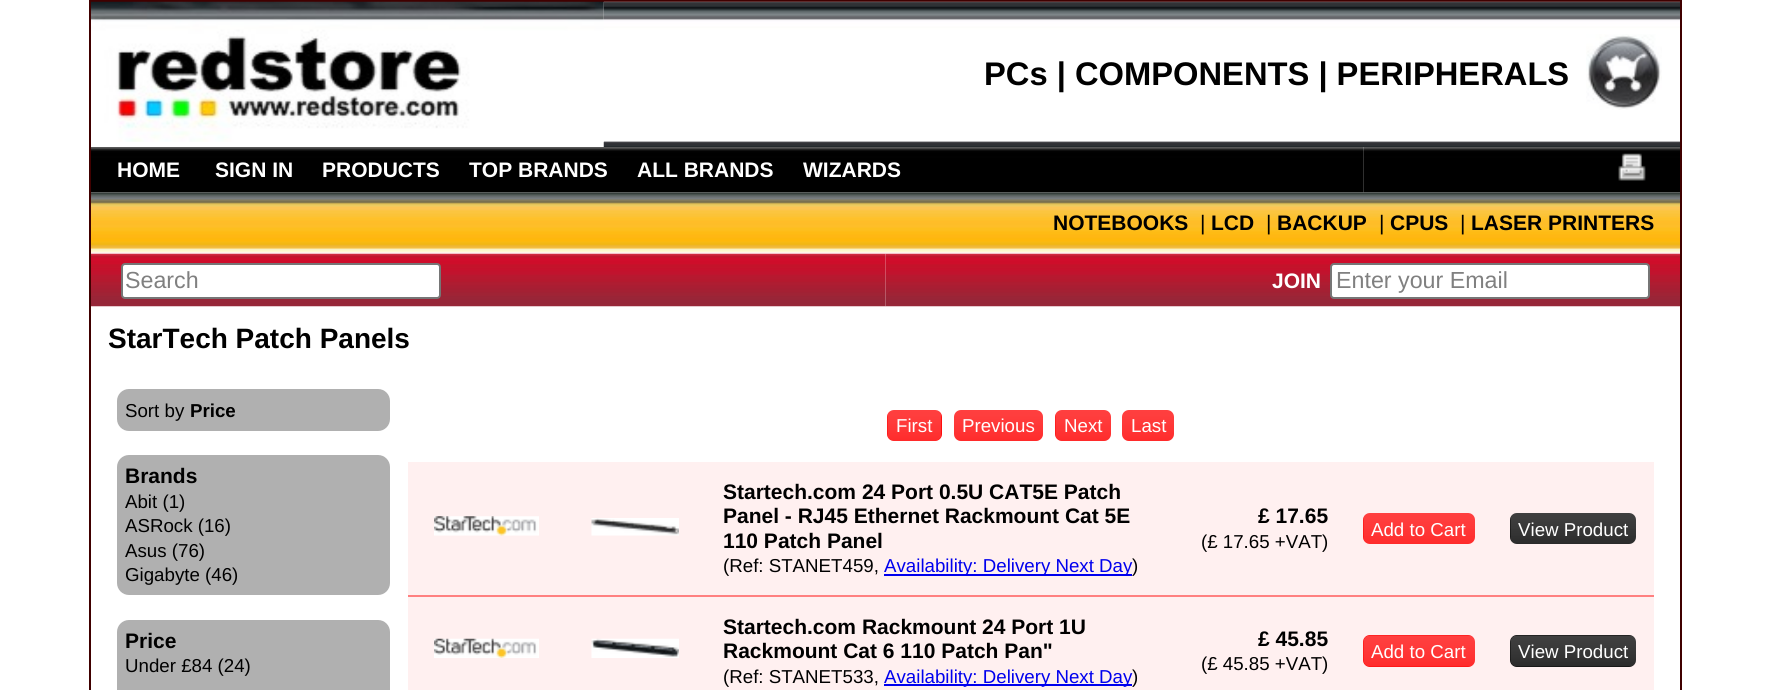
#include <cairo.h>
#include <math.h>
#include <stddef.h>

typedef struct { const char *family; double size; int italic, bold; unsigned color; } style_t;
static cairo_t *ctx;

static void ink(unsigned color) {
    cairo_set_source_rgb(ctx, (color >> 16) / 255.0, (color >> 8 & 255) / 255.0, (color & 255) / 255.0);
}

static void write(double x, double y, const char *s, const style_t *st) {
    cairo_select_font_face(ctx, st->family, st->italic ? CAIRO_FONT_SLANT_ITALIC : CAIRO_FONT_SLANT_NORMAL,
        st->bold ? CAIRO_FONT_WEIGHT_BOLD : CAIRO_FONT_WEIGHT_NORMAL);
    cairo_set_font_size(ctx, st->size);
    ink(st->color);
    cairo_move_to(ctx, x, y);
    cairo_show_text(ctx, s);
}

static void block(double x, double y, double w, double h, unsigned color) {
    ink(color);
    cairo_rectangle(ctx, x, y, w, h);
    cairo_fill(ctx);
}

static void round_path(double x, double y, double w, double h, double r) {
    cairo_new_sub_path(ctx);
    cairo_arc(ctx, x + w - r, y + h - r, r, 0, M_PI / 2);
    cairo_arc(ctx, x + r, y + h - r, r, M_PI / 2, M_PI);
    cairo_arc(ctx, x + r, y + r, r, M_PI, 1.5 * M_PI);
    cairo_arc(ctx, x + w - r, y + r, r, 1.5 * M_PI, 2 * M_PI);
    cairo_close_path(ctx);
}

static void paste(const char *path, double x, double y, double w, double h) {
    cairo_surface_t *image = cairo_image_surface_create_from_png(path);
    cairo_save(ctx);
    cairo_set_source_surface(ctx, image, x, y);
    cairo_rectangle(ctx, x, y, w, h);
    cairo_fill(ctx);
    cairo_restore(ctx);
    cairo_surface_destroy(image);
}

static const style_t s1 = {"Liberation Sans", 32.7, 0, 1, 0x000000};
static const style_t s2 = {"Liberation Sans", 21, 0, 1, 0xffffff};
static const style_t s3 = {"Liberation Sans", 21, 0, 1, 0x000000};
static const style_t s4 = {"Liberation Sans", 21, 0, 0, 0x000000};
static const style_t s5 = {"Liberation Sans", 23.25, 0, 0, 0x808080};
static const style_t s6 = {"Liberation Sans", 28, 0, 1, 0x000000};
static const style_t s7 = {"Liberation Sans", 18.7, 0, 0, 0x000000};
static const style_t s8 = {"Liberation Sans", 18.7, 0, 1, 0x000000};
static const style_t s9 = {"Liberation Sans", 18.7, 0, 0, 0xffffff};
static const style_t s10 = {"Liberation Sans", 18.7, 0, 0, 0x0000ee};

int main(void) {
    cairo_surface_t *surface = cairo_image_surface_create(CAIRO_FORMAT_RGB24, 1771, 690);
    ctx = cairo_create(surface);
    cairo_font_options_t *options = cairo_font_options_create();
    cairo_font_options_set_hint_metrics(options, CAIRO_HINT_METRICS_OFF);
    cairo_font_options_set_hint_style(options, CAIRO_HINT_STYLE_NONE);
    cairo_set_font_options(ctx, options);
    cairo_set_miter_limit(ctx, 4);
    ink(0xffffff);
    cairo_paint(ctx);
    cairo_rectangle(ctx, 90, 1, 1591, 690);
    ink(0x400000);
    cairo_stroke(ctx);
    paste("pic2.png", 603, 1, 1077, 146);
    paste("pic1.png", 91, 1, 513, 141);
    write(984, 85, "PCs | COMPONENTS | PERIPHERALS", &s1);
    paste("pic3.png", 1586, 34, 76, 76);
    paste("pic4.png", 91, 147, 1273, 46);
    write(117, 177, "HOME", &s2);
    write(215, 177, "SIGN IN", &s2);
    write(322, 177, "PRODUCTS", &s2);
    write(469, 177, "TOP BRANDS", &s2);
    write(637, 177, "ALL BRANDS", &s2);
    write(803, 177, "WIZARDS", &s2);
    paste("pic5.png", 1363, 147, 317, 46);
    paste("pic6.png", 1618, 153, 28, 28);
    paste("pic7.png", 91, 192, 1589, 62);
    write(1053, 230, "NOTEBOOKS", &s3);
    write(1200, 230, "|", &s4);
    write(1211, 230, "LCD", &s3);
    write(1266, 230, "|", &s4);
    write(1277, 230, "BACKUP", &s3);
    write(1379, 230, "|", &s4);
    write(1390, 230, "CPUS", &s3);
    write(1460, 230, "|", &s4);
    write(1471, 230, "LASER PRINTERS", &s3);
    paste("pic8.png", 91, 253, 795, 54);
    ink(0xffffff);
    round_path(122, 264, 318, 34, 3);
    cairo_fill_preserve(ctx);
    ink(0x767676);
    cairo_stroke(ctx);
    write(125, 288, "Search", &s5);
    paste("pic9.png", 885, 253, 795, 54);
    write(1272, 288, "JOIN", &s2);
    round_path(1331, 264, 318, 34, 3);
    cairo_fill_preserve(ctx);
    ink(0x767676);
    cairo_stroke(ctx);
    write(1336, 288, "Enter your Email", &s5);
    write(108, 348, "StarTech Patch Panels", &s6);
    ink(0xb0b0b0);
    round_path(117, 389, 273, 42, 12);
    cairo_fill(ctx);
    write(125, 417, "Sort by", &s7);
    write(190, 417, "Price", &s8);
    ink(0xb0b0b0);
    round_path(117, 455, 273, 140, 12);
    cairo_fill(ctx);
    write(125, 483, "Brands", &s3);
    write(125, 508, "Abit (1)", &s7);
    write(125, 532, "ASRock (16)", &s7);
    write(125, 557, "Asus (76)", &s7);
    write(125, 581, "Gigabyte (46)", &s7);
    ink(0xb0b0b0);
    round_path(117, 620, 273, 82, 12);
    cairo_fill(ctx);
    write(125, 648, "Price", &s3);
    write(125, 672, "Under £84 (24)", &s7);
    ink(0xff0000);
    round_path(887, 410, 55, 31, 7);
    cairo_fill(ctx);
    paste("pic10.png", 887, 410, 55, 31);
    write(896, 432, "First", &s9);
    ink(0xff0000);
    round_path(954, 410, 89, 31, 7);
    cairo_fill(ctx);
    paste("pic11.png", 954, 410, 89, 31);
    write(962, 432, "Previous", &s9);
    ink(0xff0000);
    round_path(1055, 410, 56, 31, 7);
    cairo_fill(ctx);
    paste("pic12.png", 1055, 410, 56, 31);
    write(1064, 432, "Next", &s9);
    ink(0xff0000);
    round_path(1122, 410, 52, 31, 7);
    cairo_fill(ctx);
    paste("pic13.png", 1122, 410, 52, 31);
    write(1131, 432, "Last", &s9);
    block(408, 462, 1246, 133, 0xfff0f0);
    block(408, 595, 1246, 2, 0xff8080);
    paste("pic14.png", 434, 516, 105, 20);
    paste("pic15.png", 591, 518, 88, 18);
    write(723, 499, "Startech.com 24 Port 0.5U CAT5E Patch", &s3);
    write(723, 523, "Panel - RJ45 Ethernet Rackmount Cat 5E", &s3);
    write(723, 548, "110 Patch Panel", &s3);
    write(723, 572, "(Ref: STANET459,", &s7);
    block(884, 574, 248, 2, 0x0000ee);
    write(884, 572, "Availability: Delivery Next Day", &s10);
    write(1132, 572, ")", &s7);
    write(1258, 523, "£ 17.65", &s3);
    write(1201, 548, "(£ 17.65 +VAT)", &s7);
    ink(0xff0000);
    round_path(1363, 513, 112, 31, 7);
    cairo_fill(ctx);
    paste("pic16.png", 1363, 513, 112, 31);
    write(1371, 536, "Add to Cart", &s9);
    ink(0x000000);
    round_path(1510, 513, 126, 31, 7);
    cairo_fill(ctx);
    paste("pic17.png", 1510, 513, 126, 31);
    write(1518, 536, "View Product", &s9);
    block(408, 597, 1246, 93, 0xfff0f0);
    paste("pic18.png", 434, 638, 105, 20);
    paste("pic19.png", 591, 638, 88, 20);
    write(723, 634, "Startech.com Rackmount 24 Port 1U", &s3);
    write(723, 658, "Rackmount Cat 6 110 Patch Pan\"", &s3);
    write(723, 683, "(Ref: STANET533,", &s7);
    block(884, 684, 248, 2, 0x0000ee);
    write(884, 683, "Availability: Delivery Next Day", &s10);
    write(1132, 683, ")", &s7);
    write(1258, 646, "£ 45.85", &s3);
    write(1201, 670, "(£ 45.85 +VAT)", &s7);
    ink(0xff0000);
    round_path(1363, 635, 112, 32, 7);
    cairo_fill(ctx);
    paste("pic20.png", 1363, 635, 112, 32);
    write(1371, 658, "Add to Cart", &s9);
    ink(0x000000);
    round_path(1510, 635, 126, 32, 7);
    cairo_fill(ctx);
    paste("pic21.png", 1510, 635, 126, 32);
    write(1518, 658, "View Product", &s9);
    cairo_surface_write_to_png(surface, "screenshot.png");
    cairo_font_options_destroy(options);
    cairo_destroy(ctx);
    cairo_surface_destroy(surface);
    return 0;
}
